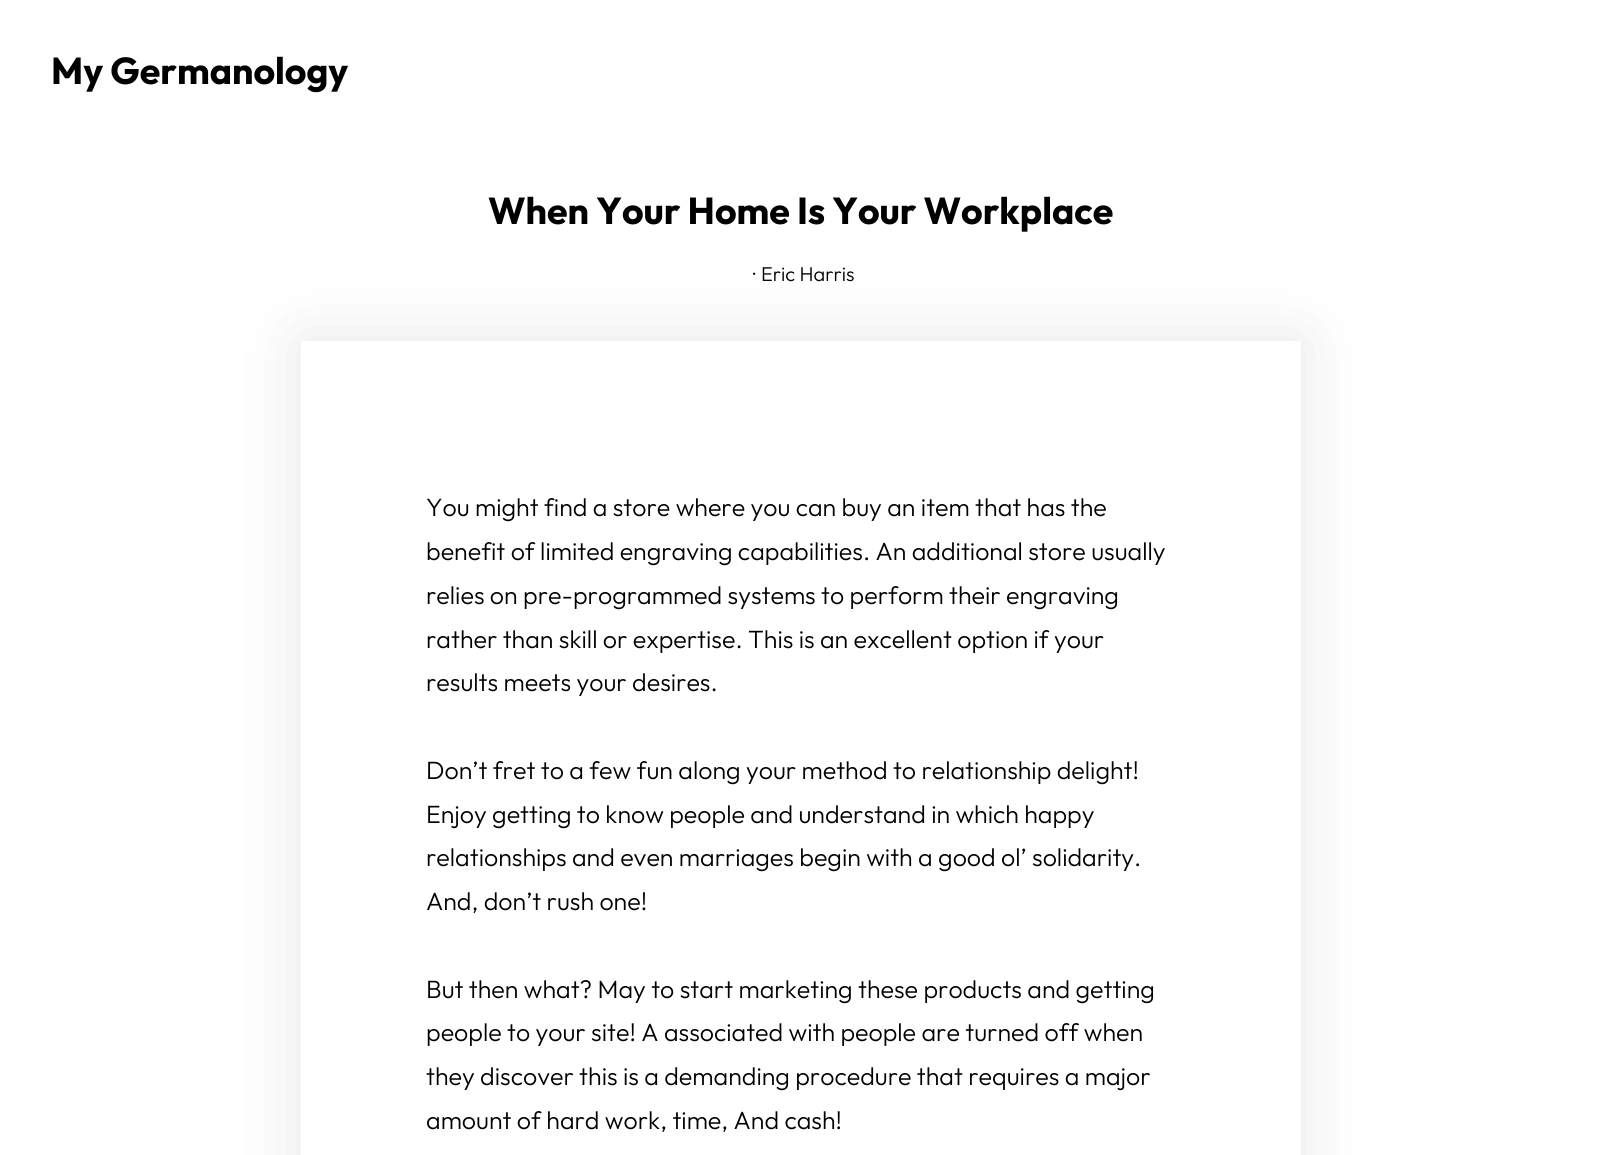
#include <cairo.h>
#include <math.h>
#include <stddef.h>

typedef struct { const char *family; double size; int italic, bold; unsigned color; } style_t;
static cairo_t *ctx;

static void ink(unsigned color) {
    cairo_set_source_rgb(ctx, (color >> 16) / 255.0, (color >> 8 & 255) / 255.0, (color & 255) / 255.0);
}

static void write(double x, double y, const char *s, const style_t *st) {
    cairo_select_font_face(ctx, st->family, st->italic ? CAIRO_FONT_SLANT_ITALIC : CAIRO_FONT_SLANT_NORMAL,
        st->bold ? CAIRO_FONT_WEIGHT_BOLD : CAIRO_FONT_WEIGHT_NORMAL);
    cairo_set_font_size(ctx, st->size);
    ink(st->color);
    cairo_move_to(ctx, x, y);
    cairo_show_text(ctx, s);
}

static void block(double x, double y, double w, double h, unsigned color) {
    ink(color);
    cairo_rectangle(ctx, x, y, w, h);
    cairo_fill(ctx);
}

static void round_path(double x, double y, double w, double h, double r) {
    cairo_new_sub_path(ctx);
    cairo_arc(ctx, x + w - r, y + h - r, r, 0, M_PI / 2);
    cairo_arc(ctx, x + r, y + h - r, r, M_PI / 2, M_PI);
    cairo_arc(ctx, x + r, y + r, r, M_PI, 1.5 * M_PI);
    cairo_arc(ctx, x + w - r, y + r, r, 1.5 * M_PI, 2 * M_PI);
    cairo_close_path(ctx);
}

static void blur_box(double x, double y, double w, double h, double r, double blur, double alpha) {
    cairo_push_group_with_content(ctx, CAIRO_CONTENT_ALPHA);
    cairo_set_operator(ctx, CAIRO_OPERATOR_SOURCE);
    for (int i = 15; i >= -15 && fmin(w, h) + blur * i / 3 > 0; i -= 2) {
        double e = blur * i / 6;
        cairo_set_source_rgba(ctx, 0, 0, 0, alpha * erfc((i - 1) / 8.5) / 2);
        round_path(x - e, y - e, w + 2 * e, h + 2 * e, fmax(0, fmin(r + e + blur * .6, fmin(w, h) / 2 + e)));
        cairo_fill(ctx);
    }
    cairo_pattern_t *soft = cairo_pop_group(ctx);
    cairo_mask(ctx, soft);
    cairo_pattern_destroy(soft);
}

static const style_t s1 = {"Outfit", 37.5, 0, 1, 0x000000};
static const style_t s2 = {"Outfit Light", 20, 0, 0, 0x000000};
static const style_t s3 = {"Outfit Light", 25, 0, 0, 0x000000};

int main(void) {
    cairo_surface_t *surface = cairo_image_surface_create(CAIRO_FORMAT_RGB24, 1601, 1155);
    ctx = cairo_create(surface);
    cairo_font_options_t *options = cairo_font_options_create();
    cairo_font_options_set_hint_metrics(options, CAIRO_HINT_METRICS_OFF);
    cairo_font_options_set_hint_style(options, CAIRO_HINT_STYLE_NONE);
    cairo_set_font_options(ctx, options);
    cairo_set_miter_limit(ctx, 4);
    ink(0xffffff);
    cairo_paint(ctx);
    write(51, 84, "My Germanology", &s1);
    write(488, 224, "When Your Home Is Your Workplace", &s1);
    write(753, 281, "·", &s2);
    write(761, 281, "Eric Harris", &s2);
    ink(0x000000);
    blur_box(301, 341, 1000, 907, 0, 31, 0.1);
    block(301, 341, 1000, 814, 0xffffff);
    write(426, 516, "You might find a store where you can buy an item that has the", &s3);
    write(426, 560, "benefit of limited engraving capabilities. An additional store usually", &s3);
    write(426, 604, "relies on pre-programmed systems to perform their engraving", &s3);
    write(426, 648, "rather than skill or expertise. This is an excellent option if your", &s3);
    write(426, 691, "results meets your desires.", &s3);
    write(426, 779, "Don’t fret to a few fun along your method to relationship delight!", &s3);
    write(426, 823, "Enjoy getting to know people and understand in which happy", &s3);
    write(426, 866, "relationships and even marriages begin with a good ol’ solidarity.", &s3);
    write(426, 910, "And, don’t rush one!", &s3);
    write(426, 998, "But then what? May to start marketing these products and getting", &s3);
    write(426, 1041, "people to your site! A associated with people are turned off when", &s3);
    write(426, 1085, "they discover this is a demanding procedure that requires a major", &s3);
    write(426, 1129, "amount of hard work, time, And cash!", &s3);
    cairo_surface_write_to_png(surface, "screenshot.png");
    cairo_font_options_destroy(options);
    cairo_destroy(ctx);
    cairo_surface_destroy(surface);
    return 0;
}
